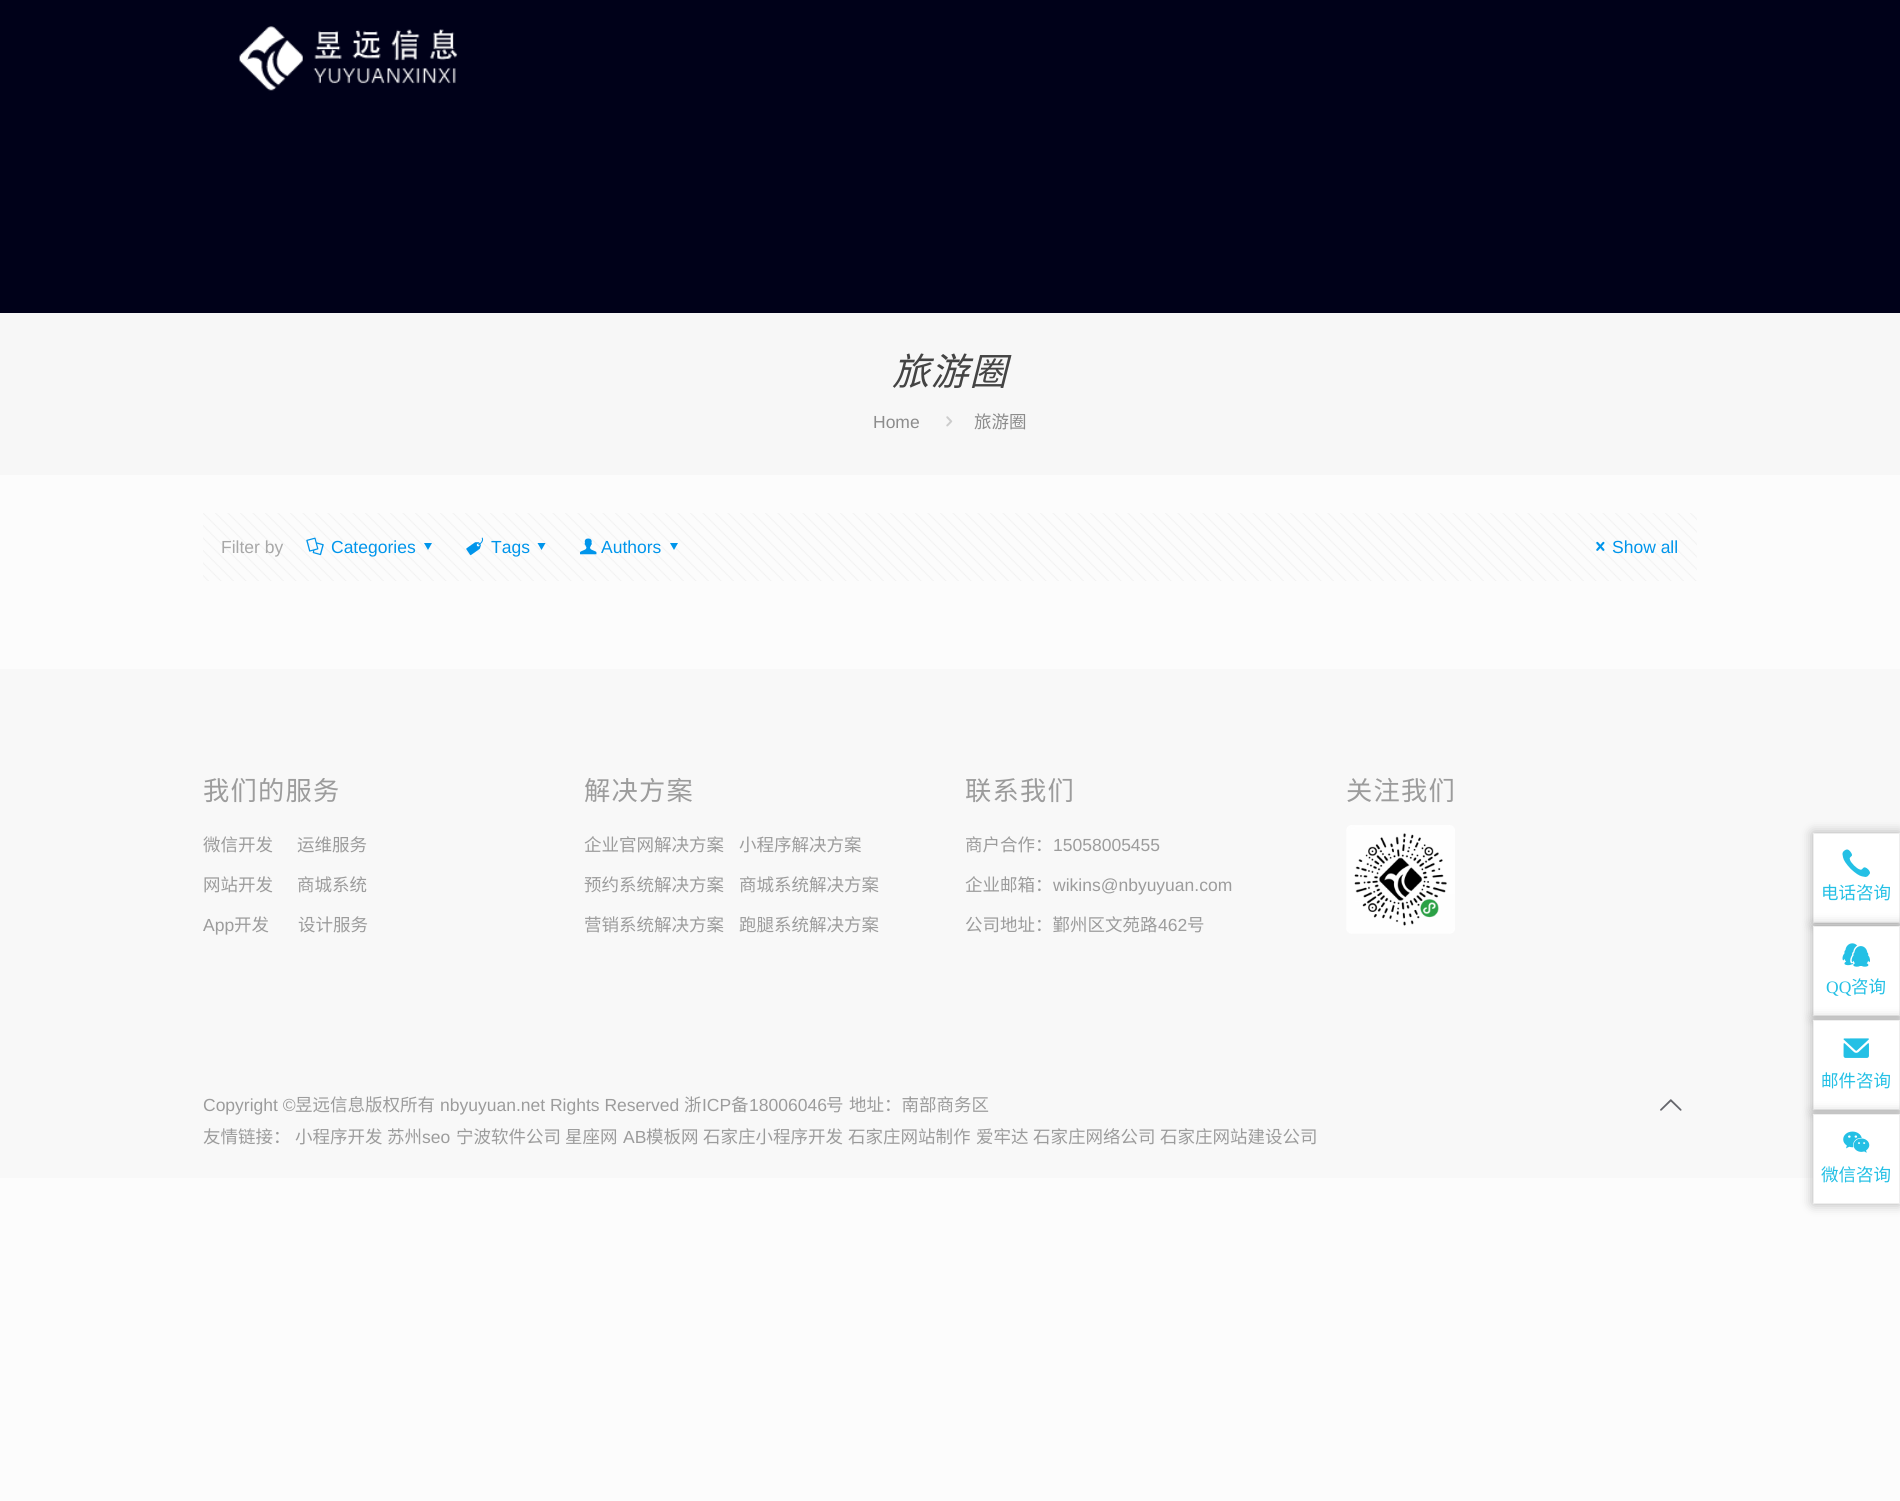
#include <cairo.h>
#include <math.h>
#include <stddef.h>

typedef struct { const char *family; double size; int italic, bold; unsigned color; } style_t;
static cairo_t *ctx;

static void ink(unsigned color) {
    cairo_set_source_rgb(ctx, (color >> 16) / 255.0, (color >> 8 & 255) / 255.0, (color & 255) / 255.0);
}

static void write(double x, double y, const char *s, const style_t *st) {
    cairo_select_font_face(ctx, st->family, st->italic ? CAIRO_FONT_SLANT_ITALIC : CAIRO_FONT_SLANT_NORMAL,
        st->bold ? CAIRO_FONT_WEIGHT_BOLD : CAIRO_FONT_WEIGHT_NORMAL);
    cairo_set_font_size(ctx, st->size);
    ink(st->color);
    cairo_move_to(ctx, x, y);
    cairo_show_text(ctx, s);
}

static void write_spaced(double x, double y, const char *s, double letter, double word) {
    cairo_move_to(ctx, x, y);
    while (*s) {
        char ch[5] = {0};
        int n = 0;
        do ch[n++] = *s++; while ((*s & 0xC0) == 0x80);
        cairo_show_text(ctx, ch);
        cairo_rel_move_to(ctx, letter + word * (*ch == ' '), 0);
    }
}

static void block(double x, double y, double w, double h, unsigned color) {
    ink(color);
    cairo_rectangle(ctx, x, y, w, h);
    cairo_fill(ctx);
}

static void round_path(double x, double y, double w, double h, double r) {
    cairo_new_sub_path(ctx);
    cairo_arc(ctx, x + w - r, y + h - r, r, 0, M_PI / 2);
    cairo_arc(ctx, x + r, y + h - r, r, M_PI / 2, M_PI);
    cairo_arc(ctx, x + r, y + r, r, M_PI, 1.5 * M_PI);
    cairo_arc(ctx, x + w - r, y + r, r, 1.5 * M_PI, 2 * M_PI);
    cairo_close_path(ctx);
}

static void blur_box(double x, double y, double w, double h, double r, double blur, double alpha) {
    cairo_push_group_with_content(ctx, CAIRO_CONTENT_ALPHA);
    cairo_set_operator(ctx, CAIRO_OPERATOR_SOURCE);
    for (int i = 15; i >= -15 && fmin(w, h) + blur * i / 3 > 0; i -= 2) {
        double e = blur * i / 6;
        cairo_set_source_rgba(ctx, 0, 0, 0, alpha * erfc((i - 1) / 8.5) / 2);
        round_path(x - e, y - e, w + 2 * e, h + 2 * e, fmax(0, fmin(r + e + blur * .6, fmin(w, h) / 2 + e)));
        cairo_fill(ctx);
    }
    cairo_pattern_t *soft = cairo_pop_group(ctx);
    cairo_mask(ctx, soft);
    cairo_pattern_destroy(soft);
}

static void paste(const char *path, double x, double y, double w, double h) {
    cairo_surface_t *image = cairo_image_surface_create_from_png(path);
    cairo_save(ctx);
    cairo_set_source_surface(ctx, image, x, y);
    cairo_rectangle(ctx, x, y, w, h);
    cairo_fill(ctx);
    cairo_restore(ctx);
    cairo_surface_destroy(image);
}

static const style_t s1 = {"Liberation Sans", 17.5, 0, 0, 0x8c8c8c};
static const style_t s2 = {"Noto Sans CJK SC", 17.5, 0, 0, 0x8c8c8c};
static const style_t s3 = {"Liberation Sans", 17.5, 0, 0, 0xa8a8a8};
static const style_t s4 = {"Liberation Sans", 17.5, 0, 0, 0x0095eb};
static const style_t s5 = {"Noto Sans CJK SC", 17.5, 0, 0, 0x9c9c9c};
static const style_t s6 = {"Liberation Sans", 17.5, 0, 0, 0x9c9c9c};
static const style_t s7 = {"Noto Sans CJK SC", 17.5, 0, 0, 0x24c0e5};
static const style_t s8 = {"Liberation Serif", 17.5, 0, 0, 0x24c0e5};

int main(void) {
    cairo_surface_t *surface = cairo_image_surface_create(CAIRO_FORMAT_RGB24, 1900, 1501);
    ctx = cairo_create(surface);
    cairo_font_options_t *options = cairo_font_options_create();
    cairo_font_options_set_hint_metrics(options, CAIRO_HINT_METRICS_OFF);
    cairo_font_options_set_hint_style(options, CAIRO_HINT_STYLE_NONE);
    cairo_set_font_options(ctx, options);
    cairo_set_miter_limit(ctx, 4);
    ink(0xfcfcfc);
    cairo_paint(ctx);
    block(0, 0, 1900, 313, 0x000119);
    paste("pic1.png", 239, 26, 219, 65);
    block(0, 313, 1900, 162, 0xf7f7f7);
    cairo_select_font_face(ctx, "Noto Sans CJK SC", CAIRO_FONT_SLANT_ITALIC, CAIRO_FONT_WEIGHT_NORMAL);
    cairo_set_font_size(ctx, 37.5);
    ink(0x444444);
    write_spaced(892, 385, "旅游圈", 1.25, 0);
    write(873, 428, "Home", &s1);
    paste("pic2.png", 946, 416, 7, 11);
    write(974, 428, "旅游圈", &s2);
    paste("pic3.png", 203, 513, 1494, 68);
    write(221, 553, "Filter by", &s3);
    paste("pic4.png", 306, 537, 18, 19);
    write(331, 553, "Categories", &s4);
    cairo_new_path(ctx);
    cairo_move_to(ctx, 432, 543);
    cairo_line_to(ctx, 428, 550);
    cairo_line_to(ctx, 424, 543);
    cairo_close_path(ctx);
    cairo_fill(ctx);
    paste("pic5.png", 466, 537, 18, 19);
    write(491, 553, "Tags", &s4);
    cairo_new_path(ctx);
    cairo_move_to(ctx, 545.5, 543);
    cairo_line_to(ctx, 541.5, 550);
    cairo_line_to(ctx, 537.5, 543);
    cairo_close_path(ctx);
    cairo_fill(ctx);
    paste("pic6.png", 580, 538, 17, 17);
    write(601, 553, "Authors", &s4);
    cairo_new_path(ctx);
    cairo_move_to(ctx, 678, 543);
    cairo_line_to(ctx, 674, 550);
    cairo_line_to(ctx, 670, 543);
    cairo_close_path(ctx);
    cairo_fill(ctx);
    paste("pic7.png", 1596, 541, 9, 10);
    write(1612, 553, "Show all", &s4);
    block(0, 669, 1900, 509, 0xf8f8f8);
    cairo_select_font_face(ctx, "Noto Sans CJK SC", CAIRO_FONT_SLANT_NORMAL, CAIRO_FONT_WEIGHT_NORMAL);
    cairo_set_font_size(ctx, 26.25);
    ink(0x9c9c9c);
    write_spaced(203, 800, "我们的服务", 1.25, 0);
    write(203, 851, "微信开发", &s5);
    write(297, 851, "运维服务", &s5);
    write(203, 891, "网站开发", &s5);
    write(297, 891, "商城系统", &s5);
    write(203, 931, "App", &s6);
    write(234, 931, "开发", &s5);
    write(298, 931, "设计服务", &s5);
    cairo_set_font_size(ctx, 26.25);
    write_spaced(584, 800, "解决方案", 1.25, 0);
    write(584, 851, "企业官网解决方案", &s5);
    write(739, 851, "小程序解决方案", &s5);
    write(584, 891, "预约系统解决方案", &s5);
    write(739, 891, "商城系统解决方案", &s5);
    write(584, 931, "营销系统解决方案", &s5);
    write(739, 931, "跑腿系统解决方案", &s5);
    cairo_set_font_size(ctx, 26.25);
    write_spaced(965, 800, "联系我们", 1.25, 0);
    write(965, 851, "商户合作：", &s5);
    write(1053, 851, "15058005455", &s6);
    write(965, 891, "企业邮箱：", &s5);
    write(1053, 891, "wikins@nbyuyuan.com", &s6);
    write(965, 931, "公司地址：鄞州区文苑路", &s5);
    write(1158, 931, "462", &s6);
    write(1187, 931, "号", &s5);
    cairo_set_font_size(ctx, 26.25);
    write_spaced(1346, 800, "关注我们", 1.25, 0);
    paste("pic8.png", 1346, 825, 109, 109);
    write(203, 1111, "Copyright ©", &s6);
    write(295, 1111, "昱远信息版权所有", &s5);
    write(440, 1111, "nbyuyuan.net Rights Reserved", &s6);
    write(684, 1111, "浙", &s5);
    write(702, 1111, "ICP", &s6);
    write(731, 1111, "备", &s5);
    write(749, 1111, "18006046", &s6);
    write(826, 1111, "号", &s5);
    write(849, 1111, "地址：南部商务区", &s5);
    write(203, 1143, "友情链接：", &s5);
    write(295, 1143, "小程序开发", &s5);
    write(387, 1143, "苏州", &s5);
    write(422, 1143, "seo", &s6);
    write(456, 1143, "宁波软件公司", &s5);
    write(565, 1143, "星座网", &s5);
    write(623, 1143, "AB", &s6);
    write(646, 1143, "模板网", &s5);
    write(703, 1143, "石家庄小程序开发", &s5);
    write(848, 1143, "石家庄网站制作", &s5);
    write(976, 1143, "爱牢达", &s5);
    write(1033, 1143, "石家庄网络公司", &s5);
    write(1160, 1143, "石家庄网站建设公司", &s5);
    paste("pic9.png", 1660, 1099, 22, 12);
    ink(0x000000);
    blur_box(1813, 833, 87, 90, 0, 6, 0.3);
    ink(0xffffff);
    cairo_rectangle(ctx, 1813.5, 833.5, 86, 89);
    cairo_fill_preserve(ctx);
    ink(0xeeeeee);
    cairo_set_line_width(ctx, 1);
    cairo_stroke(ctx);
    paste("pic10.png", 1842, 849, 28, 28);
    write(1821, 899, "电话咨询", &s7);
    ink(0x000000);
    blur_box(1813, 926, 87, 90, 0, 6, 0.3);
    ink(0xffffff);
    cairo_rectangle(ctx, 1813.5, 926.5, 86, 89);
    cairo_fill_preserve(ctx);
    ink(0xeeeeee);
    cairo_stroke(ctx);
    paste("pic11.png", 1842, 943, 28, 24);
    write(1826, 993, "QQ", &s8);
    write(1851, 993, "咨询", &s7);
    ink(0x000000);
    blur_box(1813, 1020, 87, 90, 0, 6, 0.3);
    ink(0xffffff);
    cairo_rectangle(ctx, 1813.5, 1020.5, 86, 89);
    cairo_fill_preserve(ctx);
    ink(0xeeeeee);
    cairo_stroke(ctx);
    paste("pic12.png", 1843, 1038, 26, 20);
    write(1821, 1087, "邮件咨询", &s7);
    ink(0x000000);
    blur_box(1813, 1114, 87, 90, 0, 6, 0.3);
    ink(0xffffff);
    cairo_rectangle(ctx, 1813.5, 1114.5, 86, 89);
    cairo_fill_preserve(ctx);
    ink(0xeeeeee);
    cairo_stroke(ctx);
    paste("pic13.png", 1843, 1131, 27, 22);
    write(1821, 1181, "微信咨询", &s7);
    cairo_surface_write_to_png(surface, "screenshot.png");
    cairo_font_options_destroy(options);
    cairo_destroy(ctx);
    cairo_surface_destroy(surface);
    return 0;
}
